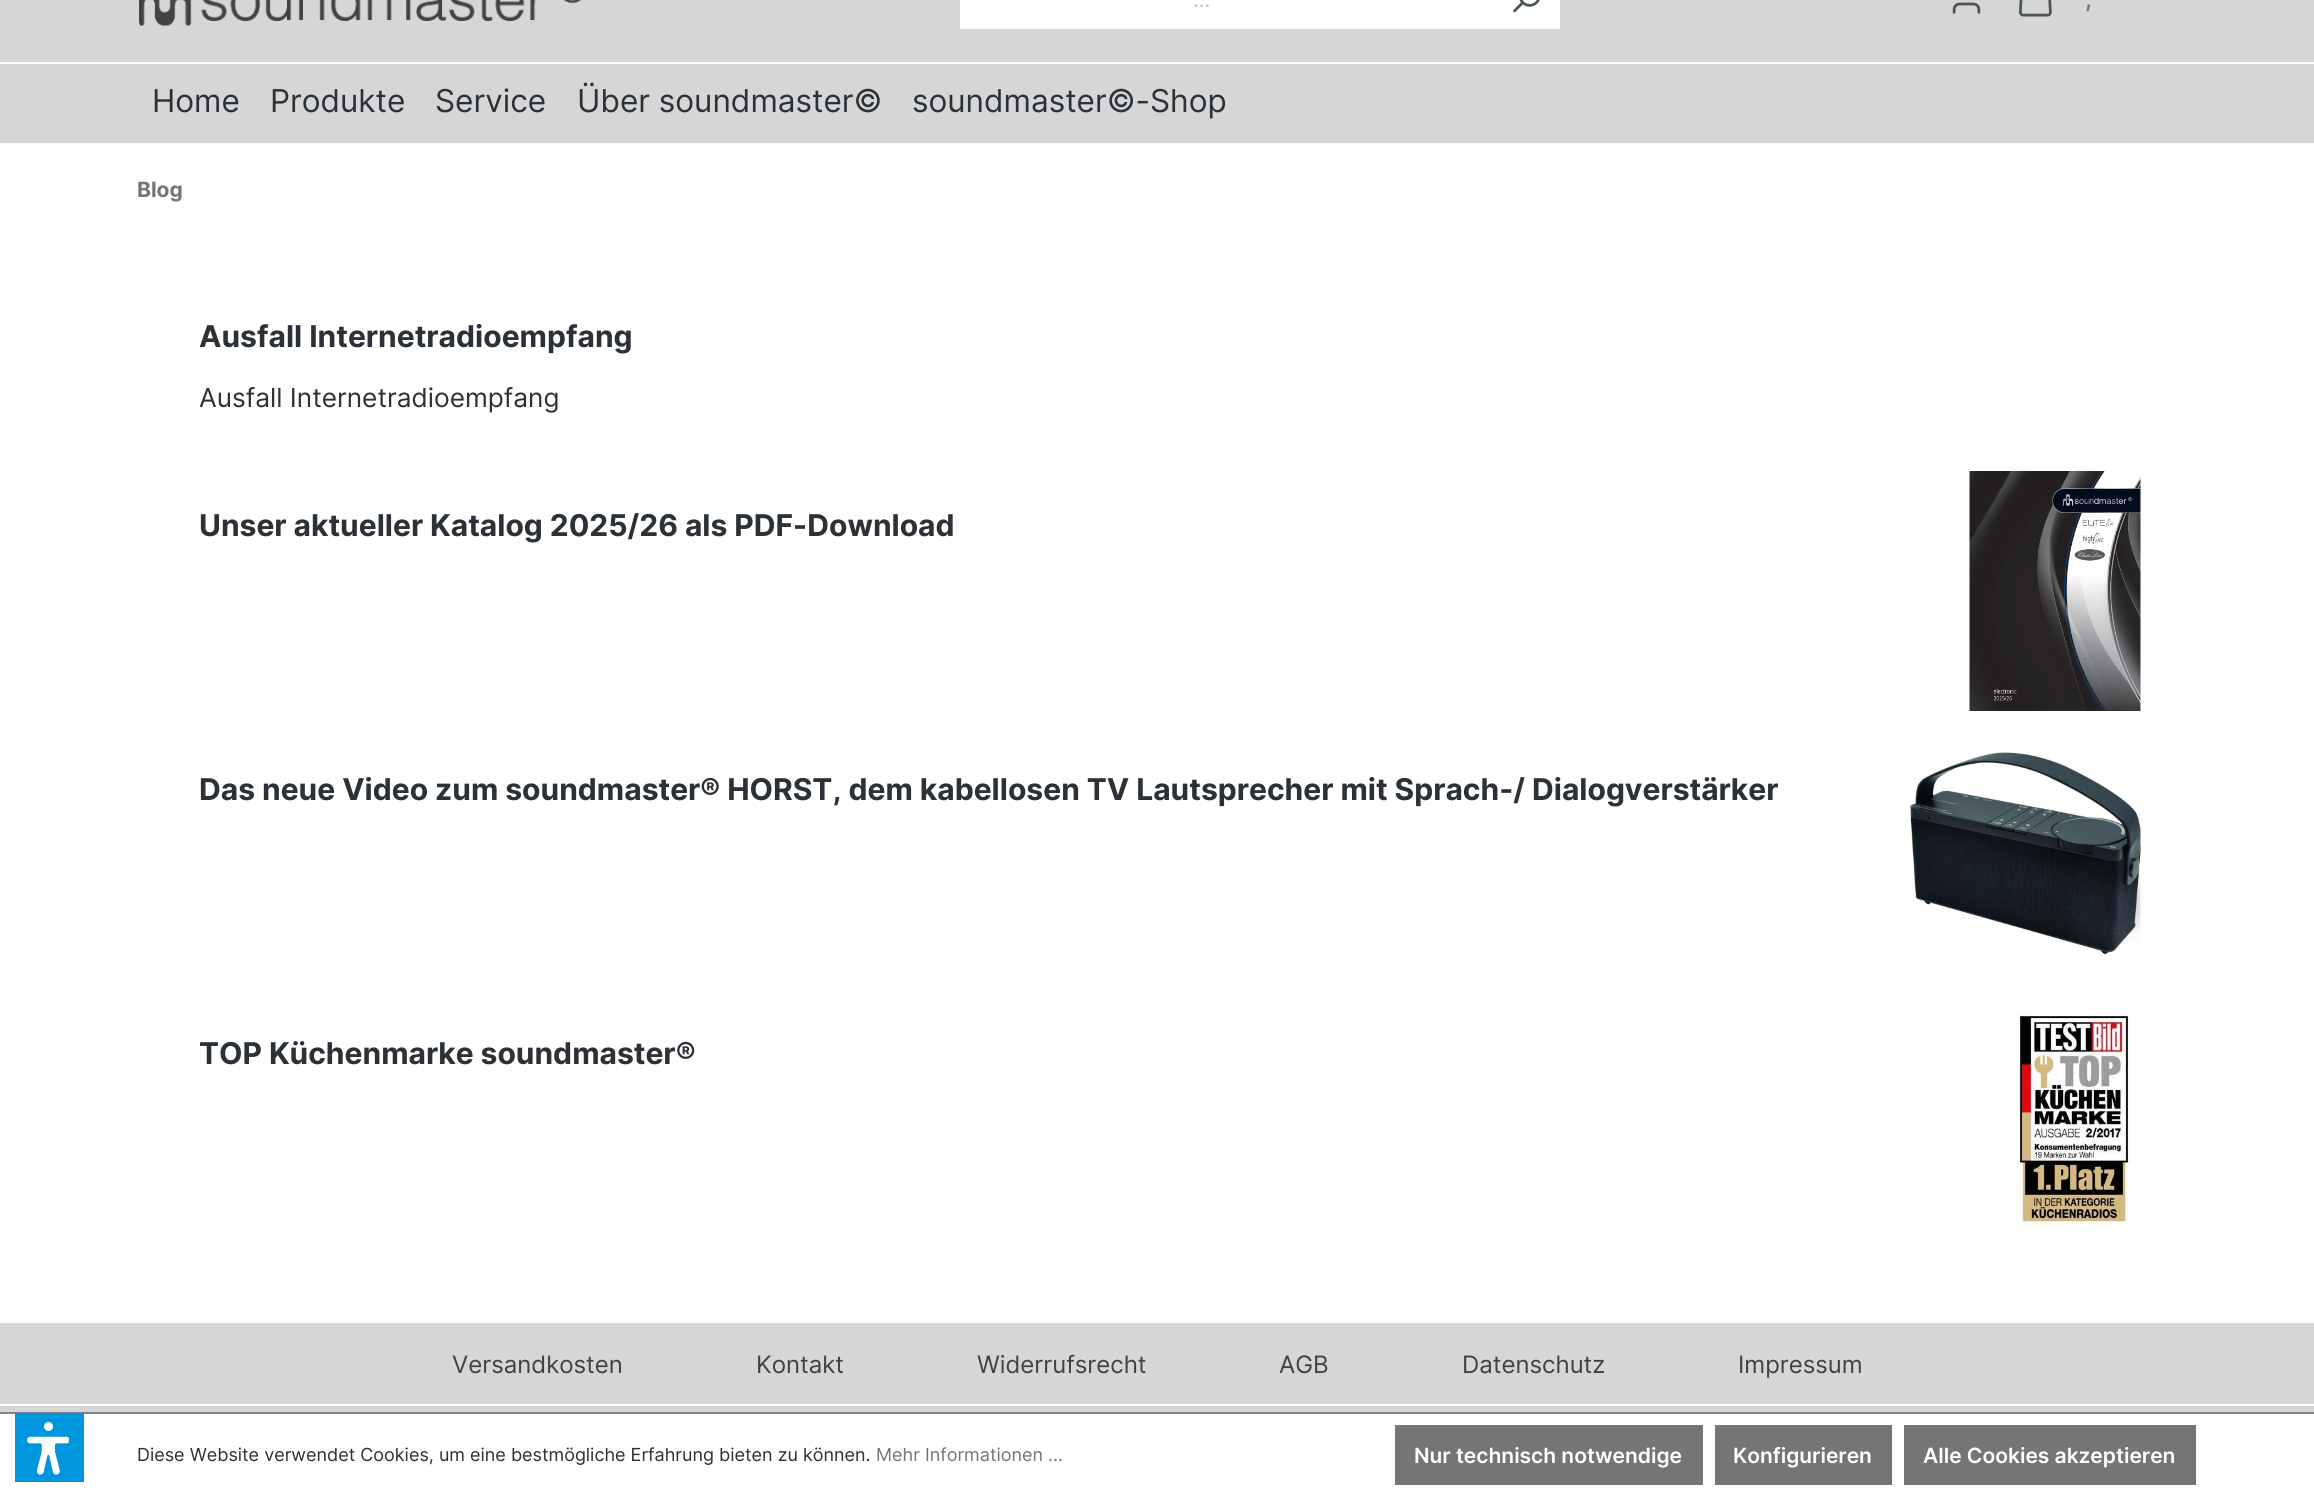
#include <cairo.h>
#include <math.h>
#include <stddef.h>

typedef struct { const char *family; double size; int italic, bold; unsigned color; } style_t;
static cairo_t *ctx;

static void ink(unsigned color) {
    cairo_set_source_rgb(ctx, (color >> 16) / 255.0, (color >> 8 & 255) / 255.0, (color & 255) / 255.0);
}

static void write(double x, double y, const char *s, const style_t *st) {
    cairo_select_font_face(ctx, st->family, st->italic ? CAIRO_FONT_SLANT_ITALIC : CAIRO_FONT_SLANT_NORMAL,
        st->bold ? CAIRO_FONT_WEIGHT_BOLD : CAIRO_FONT_WEIGHT_NORMAL);
    cairo_set_font_size(ctx, st->size);
    ink(st->color);
    cairo_move_to(ctx, x, y);
    cairo_show_text(ctx, s);
}

static void block(double x, double y, double w, double h, unsigned color) {
    ink(color);
    cairo_rectangle(ctx, x, y, w, h);
    cairo_fill(ctx);
}

static void paste(const char *path, double x, double y, double w, double h) {
    cairo_surface_t *image = cairo_image_surface_create_from_png(path);
    cairo_save(ctx);
    cairo_set_source_surface(ctx, image, x, y);
    cairo_rectangle(ctx, x, y, w, h);
    cairo_fill(ctx);
    cairo_restore(ctx);
    cairo_surface_destroy(image);
}

static const style_t s1 = {"Inter", 21, 0, 0, 0xc3c3c3};
static const style_t s2 = {"Inter SemiBold", 24, 0, 0, 0x757575};
static const style_t s3 = {"Inter", 31.5, 0, 0, 0x2b3136};
static const style_t s4 = {"Inter", 21, 0, 1, 0x757575};
static const style_t s5 = {"Inter", 30, 0, 1, 0x2b3136};
static const style_t s6 = {"Inter", 26.25, 0, 0, 0x2b3136};
static const style_t s7 = {"Inter", 24, 0, 0, 0x424242};
static const style_t s8 = {"Inter", 18, 0, 0, 0x2b3136};
static const style_t s9 = {"Inter", 18, 0, 0, 0x757575};
static const style_t s10 = {"Inter SemiBold", 21, 0, 0, 0xffffff};

int main(void) {
    cairo_surface_t *surface = cairo_image_surface_create(CAIRO_FORMAT_RGB24, 2314, 1497);
    ctx = cairo_create(surface);
    cairo_font_options_t *options = cairo_font_options_create();
    cairo_font_options_set_hint_metrics(options, CAIRO_HINT_METRICS_OFF);
    cairo_font_options_set_hint_style(options, CAIRO_HINT_STYLE_NONE);
    cairo_set_font_options(ctx, options);
    cairo_set_miter_limit(ctx, 4);
    ink(0xffffff);
    cairo_paint(ctx);
    block(0, 0, 2314, 62, 0xd6d6d6);
    paste("pic1.png", 139, 0, 443, 26);
    block(960, 0, 600, 29, 0xffffff);
    write(1193, 7, "...", &s1);
    paste("pic2.png", 1513, 0, 27, 13);
    paste("pic3.png", 1952, 2, 29, 12);
    paste("pic4.png", 2019, 0, 33, 17);
    write(2085, 7, ",", &s2);
    block(0, 64, 2314, 79, 0xd6d6d6);
    write(152, 112, "Home", &s3);
    write(270, 112, "Produkte", &s3);
    write(435, 112, "Service", &s3);
    write(577, 112, "Über soundmaster©", &s3);
    write(912, 112, "soundmaster©-Shop", &s3);
    write(137, 197, "Blog", &s4);
    write(199, 347, "Ausfall Internetradioempfang", &s5);
    write(199, 407, "Ausfall Internetradioempfang", &s6);
    write(199, 536, "Unser aktueller Katalog 2025/26 als PDF-Download", &s5);
    paste("pic5.png", 1969, 471, 172, 240);
    write(199, 800, "Das neue Video zum soundmaster® HORST, dem kabellosen TV Lautsprecher mit Sprach-/ Dialogverstärker", &s5);
    paste("pic6.png", 1910, 752, 231, 203);
    write(199, 1064, "TOP Küchenmarke soundmaster®", &s5);
    paste("pic7.png", 2017, 1014, 115, 215);
    block(0, 1323, 2314, 89, 0xd6d6d6);
    write(452, 1373, "Versandkosten", &s7);
    write(756, 1373, "Kontakt", &s7);
    write(977, 1373, "Widerrufsrecht", &s7);
    write(1279, 1373, "AGB", &s7);
    write(1462, 1373, "Datenschutz", &s7);
    write(1738, 1373, "Impressum", &s7);
    block(0, 1404, 2314, 2, 0xffffff);
    block(0, 1412, 2314, 2, 0x798490);
    block(15, 1413, 69, 69, 0x0096de);
    paste("pic8.png", 27, 1422, 42, 53);
    write(137, 1461, "Diese Website verwendet Cookies, um eine bestmögliche Erfahrung bieten zu können.", &s8);
    write(876, 1461, "Mehr Informationen ...", &s9);
    block(1395, 1425, 308, 60, 0x757575);
    write(1414, 1463, "Nur technisch notwendige", &s10);
    block(1715, 1425, 177, 60, 0x757575);
    write(1733, 1463, "Konfigurieren", &s10);
    block(1904, 1425, 292, 60, 0x757575);
    write(1923, 1463, "Alle Cookies akzeptieren", &s10);
    cairo_surface_write_to_png(surface, "screenshot.png");
    cairo_font_options_destroy(options);
    cairo_destroy(ctx);
    cairo_surface_destroy(surface);
    return 0;
}
